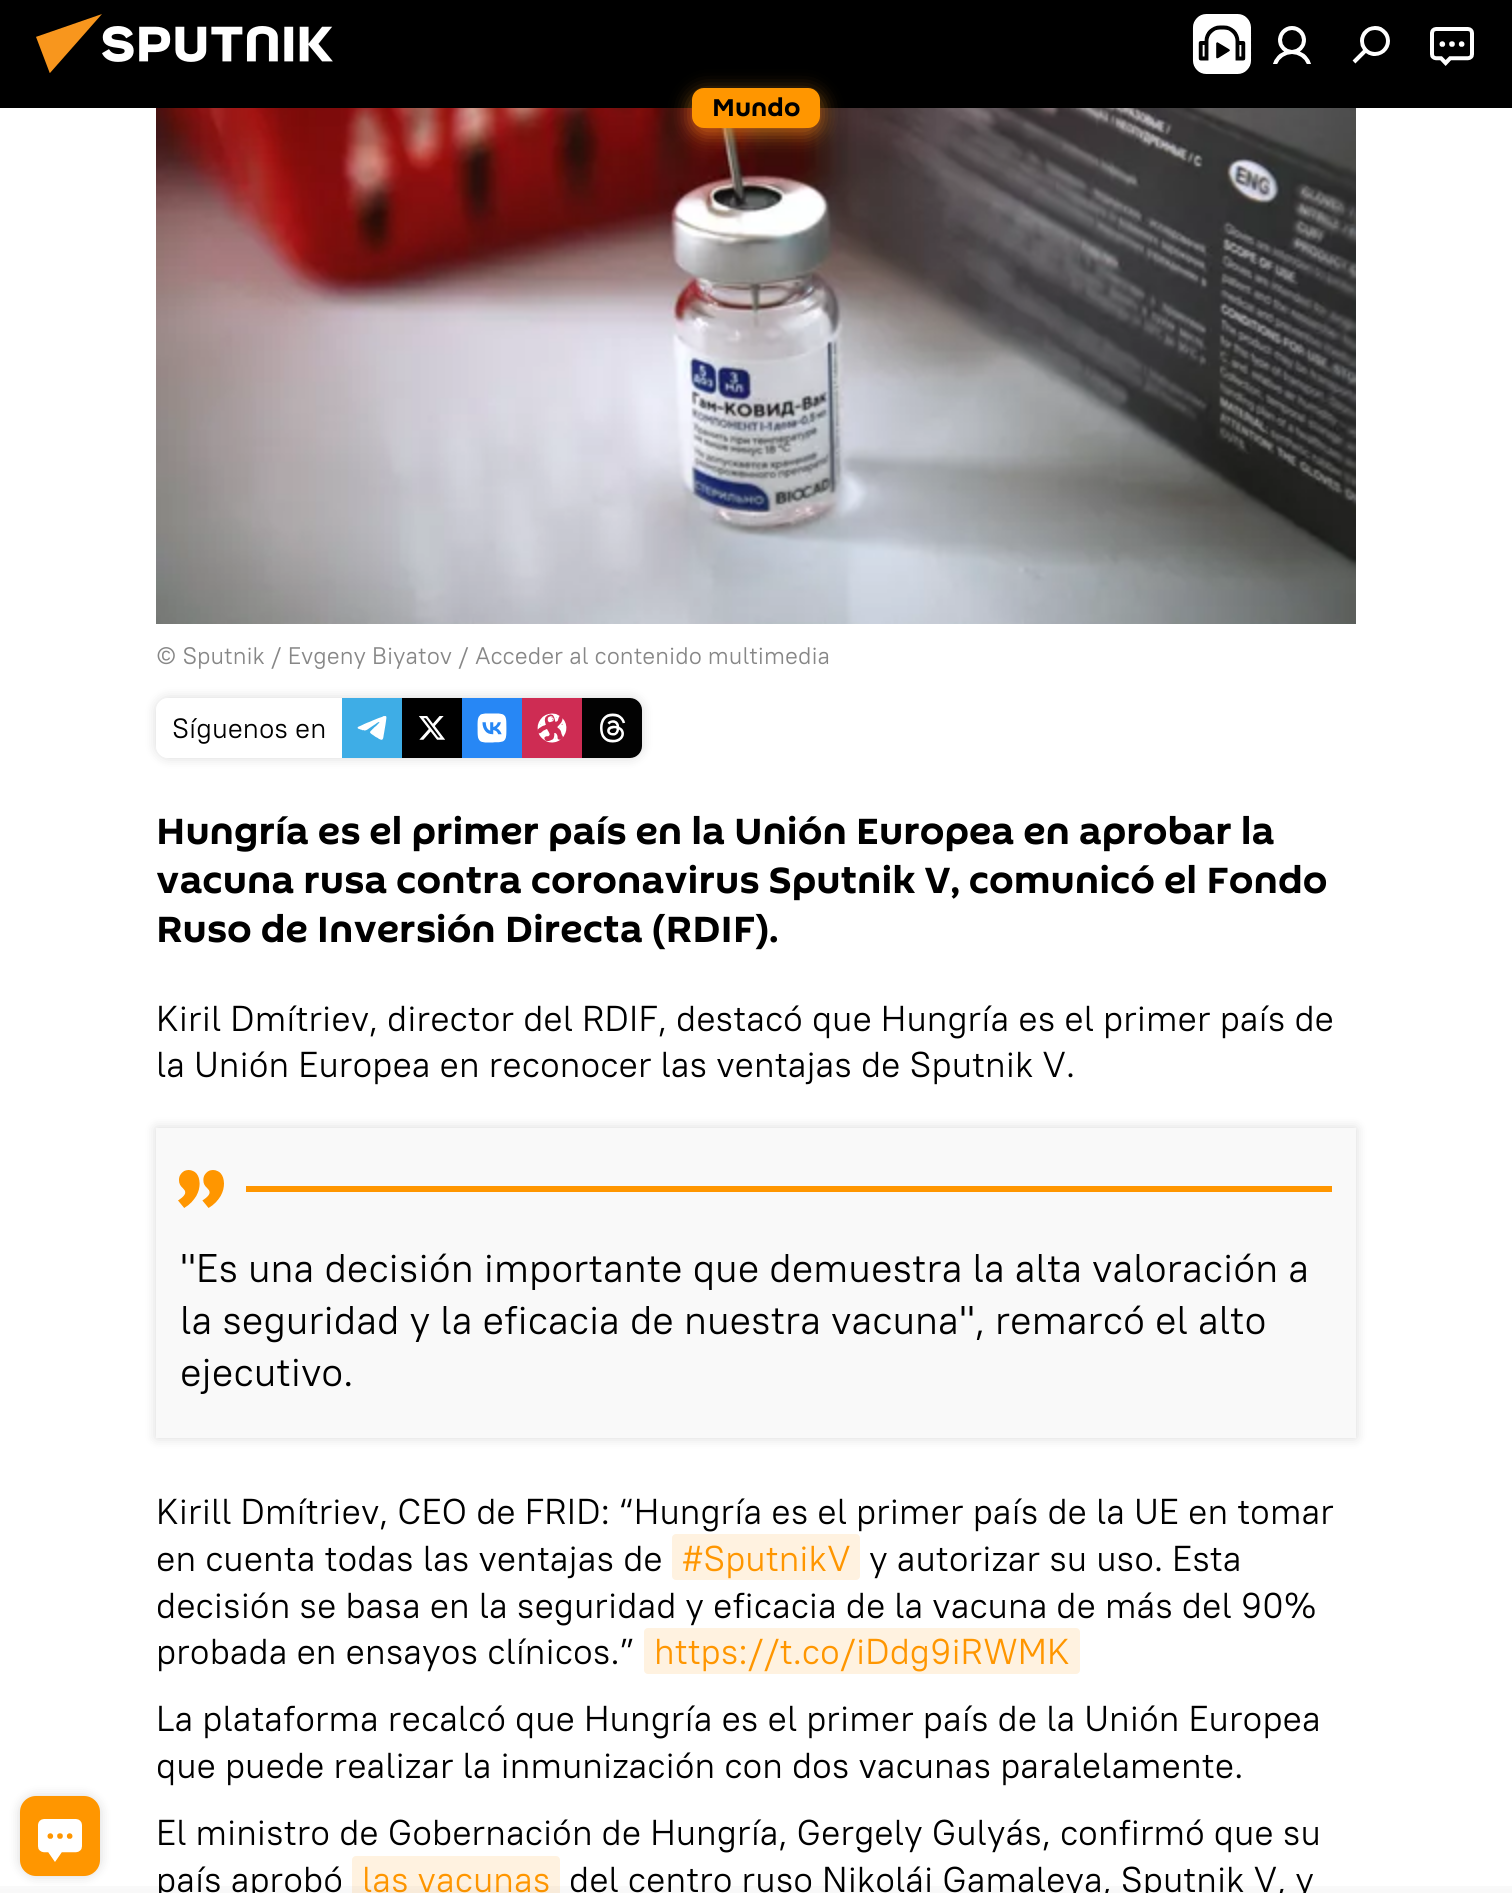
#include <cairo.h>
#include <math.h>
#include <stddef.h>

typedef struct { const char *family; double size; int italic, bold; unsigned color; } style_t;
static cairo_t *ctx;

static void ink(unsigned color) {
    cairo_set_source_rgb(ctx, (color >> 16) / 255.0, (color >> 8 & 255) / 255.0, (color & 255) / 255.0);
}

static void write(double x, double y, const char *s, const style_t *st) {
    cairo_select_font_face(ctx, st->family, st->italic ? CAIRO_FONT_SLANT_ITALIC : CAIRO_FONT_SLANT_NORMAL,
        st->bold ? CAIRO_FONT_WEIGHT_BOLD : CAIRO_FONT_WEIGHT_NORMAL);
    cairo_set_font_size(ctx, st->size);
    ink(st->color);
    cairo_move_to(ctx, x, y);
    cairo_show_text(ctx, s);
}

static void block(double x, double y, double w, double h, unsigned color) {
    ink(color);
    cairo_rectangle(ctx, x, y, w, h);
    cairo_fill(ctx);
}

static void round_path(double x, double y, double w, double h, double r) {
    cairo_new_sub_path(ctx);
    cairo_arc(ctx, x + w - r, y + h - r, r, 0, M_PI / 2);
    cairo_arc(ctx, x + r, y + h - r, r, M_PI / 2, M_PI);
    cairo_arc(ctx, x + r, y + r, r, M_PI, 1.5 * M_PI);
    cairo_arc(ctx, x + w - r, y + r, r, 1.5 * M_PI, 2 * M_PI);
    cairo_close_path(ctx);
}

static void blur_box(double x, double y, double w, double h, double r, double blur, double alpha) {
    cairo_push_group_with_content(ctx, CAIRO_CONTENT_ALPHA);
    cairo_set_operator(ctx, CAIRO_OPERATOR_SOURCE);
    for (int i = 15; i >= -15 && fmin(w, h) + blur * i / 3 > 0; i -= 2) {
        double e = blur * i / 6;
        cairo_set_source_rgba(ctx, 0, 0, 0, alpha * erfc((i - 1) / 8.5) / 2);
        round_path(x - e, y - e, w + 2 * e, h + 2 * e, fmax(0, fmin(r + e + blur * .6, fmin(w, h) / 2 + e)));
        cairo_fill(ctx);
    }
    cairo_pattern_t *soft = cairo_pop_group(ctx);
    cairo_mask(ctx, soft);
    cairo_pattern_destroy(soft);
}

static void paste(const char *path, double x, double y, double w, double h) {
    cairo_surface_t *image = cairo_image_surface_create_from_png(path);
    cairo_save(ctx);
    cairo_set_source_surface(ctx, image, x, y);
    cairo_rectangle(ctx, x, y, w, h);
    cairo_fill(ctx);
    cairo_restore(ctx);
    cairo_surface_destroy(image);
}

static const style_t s1 = {"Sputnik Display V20", 24, 0, 1, 0x000000};
static const style_t s2 = {"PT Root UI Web", 24, 0, 0, 0x878787};
static const style_t s3 = {"PT Root UI Web", 28, 0, 0, 0x000000};
static const style_t s4 = {"Sputnik Display V20", 36, 0, 1, 0x000000};
static const style_t s5 = {"PT Root UI Web", 36, 0, 0, 0x000000};
static const style_t s6 = {"PT Root UI Web", 40, 0, 0, 0x000000};
static const style_t s7 = {"PT Root UI Web", 36, 0, 0, 0xff9600};

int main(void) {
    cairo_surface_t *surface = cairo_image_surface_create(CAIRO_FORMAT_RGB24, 1512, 1893);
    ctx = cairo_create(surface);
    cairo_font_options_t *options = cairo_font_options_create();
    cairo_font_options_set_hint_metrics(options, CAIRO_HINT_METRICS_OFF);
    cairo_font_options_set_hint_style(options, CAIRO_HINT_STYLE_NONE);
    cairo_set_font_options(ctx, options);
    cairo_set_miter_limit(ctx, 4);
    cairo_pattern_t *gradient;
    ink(0xffffff);
    cairo_paint(ctx);
    block(0, 0, 1512, 108, 0x000000);
    paste("pic1.png", 1192, 14, 60, 60);
    paste("pic2.png", 1273, 26, 38, 38);
    paste("pic3.png", 1352, 26, 38, 38);
    paste("pic4.png", 1430, 27, 44, 39);
    paste("pic5.png", 36, 14, 297, 59);
    paste("pic6.png", 156, 108, 1200, 516);
    ink(0xf8961d);
    blur_box(692, 94, 128, 40, 12, 10, 0.66);
    ink(0xff9600);
    round_path(692, 88, 128, 40, 12);
    cairo_fill(ctx);
    write(712, 116, "Mundo", &s1);
    write(156, 664, "© Sputnik / Evgeny Biyatov / Acceder al contenido multimedia", &s2);
    cairo_save(ctx);
    cairo_set_fill_rule(ctx, CAIRO_FILL_RULE_EVEN_ODD);
    cairo_new_path(ctx);
    cairo_move_to(ctx, 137, 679);
    cairo_line_to(ctx, 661, 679);
    cairo_line_to(ctx, 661, 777);
    cairo_line_to(ctx, 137, 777);
    cairo_close_path(ctx);
    cairo_move_to(ctx, 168, 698);
    cairo_line_to(ctx, 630, 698);
    cairo_curve_to(ctx, 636.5, 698, 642, 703.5, 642, 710);
    cairo_line_to(ctx, 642, 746);
    cairo_curve_to(ctx, 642, 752.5, 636.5, 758, 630, 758);
    cairo_line_to(ctx, 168, 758);
    cairo_curve_to(ctx, 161.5, 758, 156, 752.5, 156, 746);
    cairo_line_to(ctx, 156, 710);
    cairo_curve_to(ctx, 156, 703.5, 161.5, 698, 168, 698);
    cairo_close_path(ctx);
    cairo_clip(ctx);
    ink(0x000000);
    blur_box(156, 698, 486, 60, 12, 6, 0.15);
    cairo_restore(ctx);
    write(172, 738, "Síguenos en", &s3);
    block(342, 698, 60, 60, 0x3eade6);
    paste("pic7.png", 357, 716, 30, 24);
    block(402, 698, 60, 60, 0x000000);
    paste("pic8.png", 419, 716, 26, 24);
    block(462, 698, 60, 60, 0x2787f5);
    paste("pic9.png", 477, 713, 30, 30);
    block(522, 698, 60, 60, 0xce2c53);
    paste("pic10.png", 537, 713, 30, 30);
    ink(0x020202);
    cairo_new_path(ctx);
    cairo_move_to(ctx, 582, 698);
    cairo_line_to(ctx, 630, 698);
    cairo_curve_to(ctx, 636.5, 698, 642, 703.5, 642, 710);
    cairo_line_to(ctx, 642, 746);
    cairo_curve_to(ctx, 642, 752.5, 636.5, 758, 630, 758);
    cairo_line_to(ctx, 582, 758);
    cairo_close_path(ctx);
    cairo_fill(ctx);
    paste("pic11.png", 600, 713, 26, 30);
    write(156, 844, "Hungría es el primer país en la Unión Europea en aprobar la", &s4);
    write(156, 893, "vacuna rusa contra coronavirus Sputnik V, comunicó el Fondo", &s4);
    write(156, 942, "Ruso de Inversión Directa (RDIF).", &s4);
    write(156, 1031, "Kiril Dmítriev, director del RDIF, destacó que Hungría es el primer país de", &s5);
    write(156, 1077, "la Unión Europea en reconocer las ventajas de Sputnik V.", &s5);
    ink(0x000000);
    blur_box(156, 1128, 1200, 310, 0, 6, 0.15);
    block(156, 1128, 1200, 310, 0xf9f9f9);
    paste("pic12.png", 178, 1170, 46, 38);
    block(246, 1186, 1086, 6, 0xff9600);
    write(180, 1282, "\"Es una decisión importante que demuestra la alta valoración a", &s6);
    write(180, 1334, "la seguridad y la eficacia de nuestra vacuna\", remarcó el alto", &s6);
    write(180, 1386, "ejecutivo.", &s6);
    write(156, 1524, "Kirill Dmítriev, CEO de FRID: “Hungría es el primer país de la UE en tomar", &s5);
    write(156, 1571, "en cuenta todas las ventajas de", &s5);
    ink(0xfff2e0);
    round_path(672, 1534, 188, 46, 4);
    cairo_fill(ctx);
    write(682, 1571, "#SputnikV", &s7);
    write(869, 1571, "y autorizar su uso. Esta", &s5);
    write(156, 1618, "decisión se basa en la seguridad y eficacia de la vacuna de más del 90%", &s5);
    write(156, 1664, "probada en ensayos clínicos.”", &s5);
    ink(0xfff2e0);
    round_path(644, 1628, 436, 46, 4);
    cairo_fill(ctx);
    write(654, 1664, "https://t.co/iDdg9iRWMK", &s7);
    write(156, 1731, "La plataforma recalcó que Hungría es el primer país de la Unión Europea", &s5);
    write(156, 1778, "que puede realizar la inmunización con dos vacunas paralelamente.", &s5);
    write(156, 1845, "El ministro de Gobernación de Hungría, Gergely Gulyás, confirmó que su", &s5);
    write(156, 1892, "país aprobó", &s5);
    ink(0xfff2e0);
    round_path(352, 1856, 208, 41, 4);
    cairo_fill(ctx);
    write(362, 1892, "las vacunas", &s7);
    write(569, 1892, "del centro ruso Nikolái Gamaleya, Sputnik V, y", &s5);
    gradient = cairo_pattern_create_linear(756, 1864, 756, 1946);
    cairo_pattern_add_color_stop_rgba(gradient, 0, 0, 0, 0, 0);
    cairo_pattern_add_color_stop_rgba(gradient, 0.61, 0, 0, 0, 0.05);
    cairo_pattern_add_color_stop_rgba(gradient, 0.86, 0, 0, 0, 0.09);
    cairo_pattern_add_color_stop_rgba(gradient, 1, 0, 0, 0, 0.18);
    cairo_set_source(ctx, gradient);
    cairo_pattern_destroy(gradient);
    cairo_rectangle(ctx, 0, 1886, 1512, 7);
    cairo_fill(ctx);
    ink(0x000000);
    blur_box(20, 1796, 80, 80, 16, 6, 0.15);
    ink(0xff9600);
    round_path(20, 1796, 80, 80, 16);
    cairo_fill(ctx);
    paste("pic13.png", 38, 1819, 44, 43);
    cairo_surface_write_to_png(surface, "screenshot.png");
    cairo_font_options_destroy(options);
    cairo_destroy(ctx);
    cairo_surface_destroy(surface);
    return 0;
}
